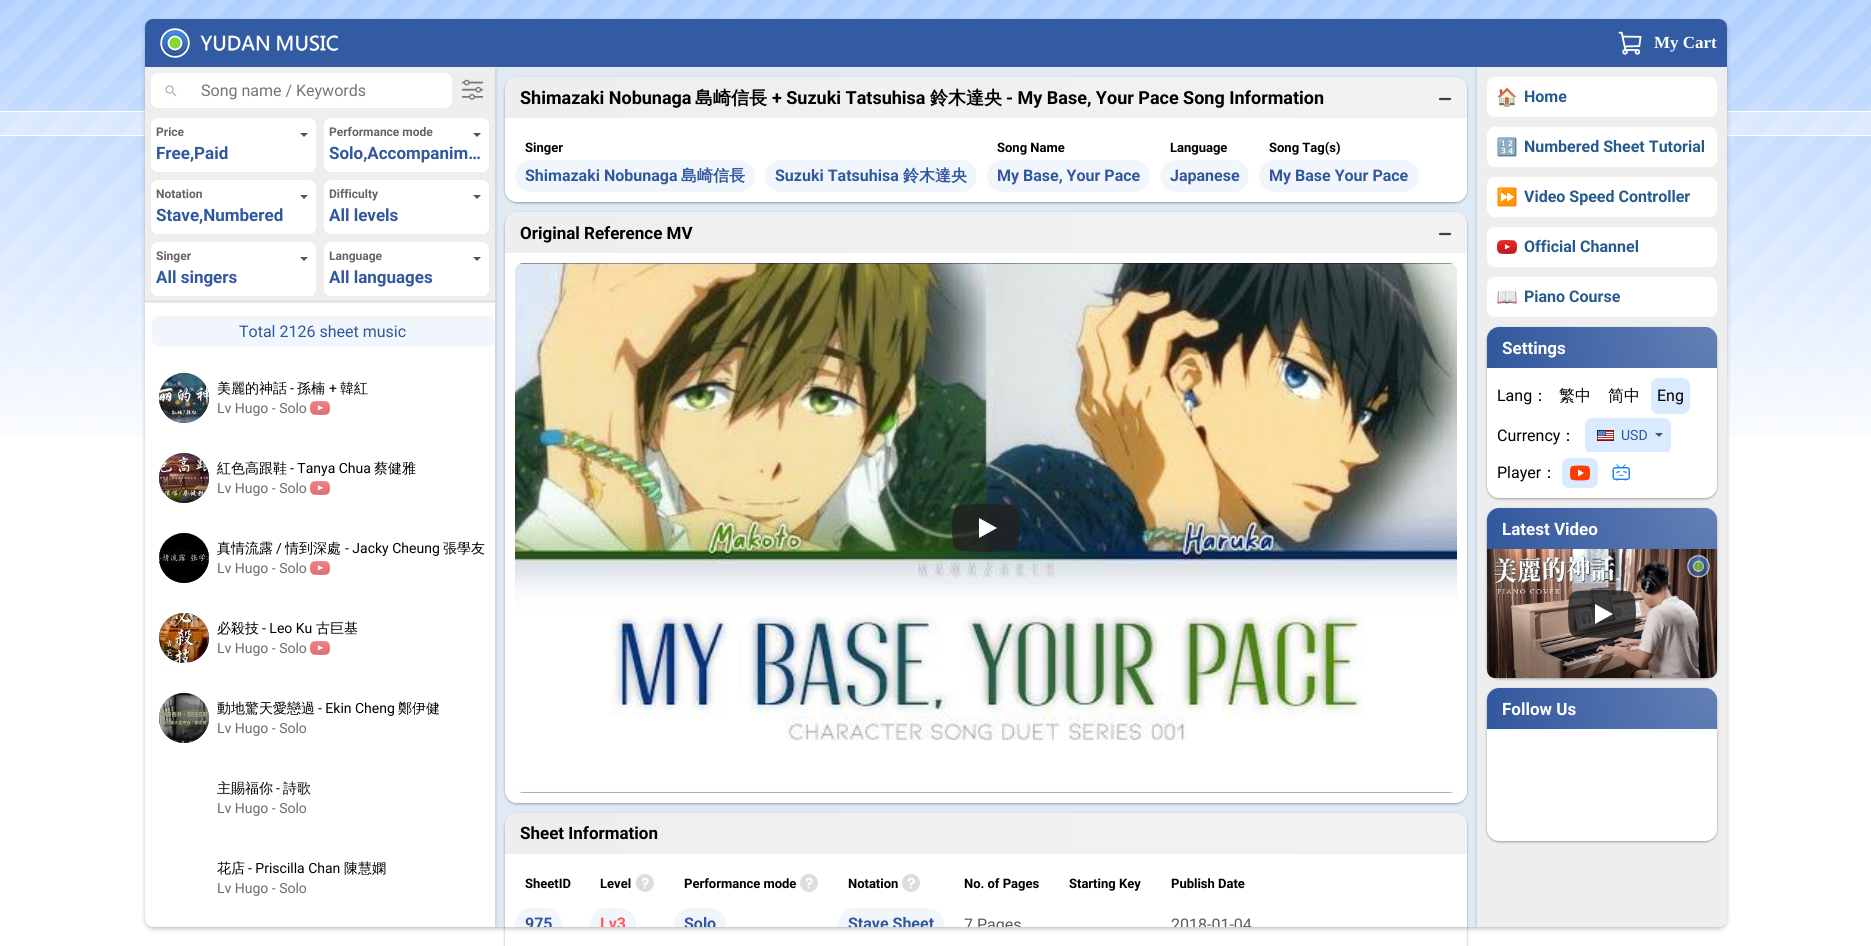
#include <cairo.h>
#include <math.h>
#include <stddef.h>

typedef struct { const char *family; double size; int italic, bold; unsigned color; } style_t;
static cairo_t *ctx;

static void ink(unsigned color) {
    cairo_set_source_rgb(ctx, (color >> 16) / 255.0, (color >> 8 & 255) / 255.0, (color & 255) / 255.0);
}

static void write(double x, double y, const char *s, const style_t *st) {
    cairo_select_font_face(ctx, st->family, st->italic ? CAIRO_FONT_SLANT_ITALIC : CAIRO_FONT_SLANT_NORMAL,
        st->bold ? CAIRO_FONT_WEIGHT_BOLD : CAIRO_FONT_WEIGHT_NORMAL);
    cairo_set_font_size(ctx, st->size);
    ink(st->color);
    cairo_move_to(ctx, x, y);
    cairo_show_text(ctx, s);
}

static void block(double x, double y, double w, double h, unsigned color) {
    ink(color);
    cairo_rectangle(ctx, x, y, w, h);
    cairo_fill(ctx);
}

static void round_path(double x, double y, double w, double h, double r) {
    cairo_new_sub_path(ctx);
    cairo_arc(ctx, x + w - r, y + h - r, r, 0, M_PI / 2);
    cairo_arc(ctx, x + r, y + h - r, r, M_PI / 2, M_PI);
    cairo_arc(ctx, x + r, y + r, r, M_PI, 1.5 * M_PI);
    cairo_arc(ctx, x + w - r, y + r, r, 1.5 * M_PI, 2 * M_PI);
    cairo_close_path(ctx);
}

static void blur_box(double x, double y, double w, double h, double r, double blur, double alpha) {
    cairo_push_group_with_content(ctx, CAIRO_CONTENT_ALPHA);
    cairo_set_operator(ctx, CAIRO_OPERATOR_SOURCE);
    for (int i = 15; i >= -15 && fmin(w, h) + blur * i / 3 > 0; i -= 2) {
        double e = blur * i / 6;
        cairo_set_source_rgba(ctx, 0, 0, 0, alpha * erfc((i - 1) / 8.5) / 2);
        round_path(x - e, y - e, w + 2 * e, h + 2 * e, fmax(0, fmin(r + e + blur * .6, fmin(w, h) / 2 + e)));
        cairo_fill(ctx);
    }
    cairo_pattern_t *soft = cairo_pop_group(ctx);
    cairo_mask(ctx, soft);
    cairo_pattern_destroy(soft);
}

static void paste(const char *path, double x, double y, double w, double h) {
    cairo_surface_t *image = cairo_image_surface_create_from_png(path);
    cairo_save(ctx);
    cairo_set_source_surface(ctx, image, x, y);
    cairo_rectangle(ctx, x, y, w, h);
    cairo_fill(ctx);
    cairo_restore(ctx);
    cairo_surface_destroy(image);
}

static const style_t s1 = {"Liberation Serif", 17, 0, 1, 0xffffff};
static const style_t s2 = {"Roboto", 16, 0, 0, 0x757575};
static const style_t s3 = {"Roboto", 12, 0, 1, 0x646464};
static const style_t s4 = {"Roboto", 17, 0, 1, 0x31579e};
static const style_t s5 = {"Roboto", 16, 0, 0, 0x31579e};
static const style_t s6 = {"WenQuanYi Zen Hei Medium", 14, 0, 0, 0x000000};
static const style_t s7 = {"Roboto", 14, 0, 0, 0x000000};
static const style_t s8 = {"Roboto", 14, 0, 0, 0x6b6b6b};
static const style_t s9 = {"Roboto", 18, 0, 1, 0x000000};
static const style_t s10 = {"WenQuanYi Zen Hei", 18, 0, 1, 0x000000};
static const style_t s11 = {"Roboto", 13, 0, 1, 0x000000};
static const style_t s12 = {"Roboto", 16, 0, 1, 0x31579e};
static const style_t s13 = {"WenQuanYi Zen Hei", 16, 0, 1, 0x31579e};
static const style_t s14 = {"Roboto", 17, 0, 1, 0x000000};
static const style_t s15 = {"Roboto", 16, 0, 1, 0xff5b5b};
static const style_t s16 = {"Roboto", 16, 0, 0, 0x5a5a5a};
static const style_t s17 = {"Roboto", 16, 0, 1, 0x265a8f};
static const style_t s18 = {"Roboto", 17, 0, 1, 0xffffff};
static const style_t s19 = {"Roboto", 16, 0, 0, 0x000000};
static const style_t s20 = {"WenQuanYi Zen Hei Medium", 16, 0, 0, 0x000000};
static const style_t s21 = {"Roboto", 14, 0, 0, 0x31579e};

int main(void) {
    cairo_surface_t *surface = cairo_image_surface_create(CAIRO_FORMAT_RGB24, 1871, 946);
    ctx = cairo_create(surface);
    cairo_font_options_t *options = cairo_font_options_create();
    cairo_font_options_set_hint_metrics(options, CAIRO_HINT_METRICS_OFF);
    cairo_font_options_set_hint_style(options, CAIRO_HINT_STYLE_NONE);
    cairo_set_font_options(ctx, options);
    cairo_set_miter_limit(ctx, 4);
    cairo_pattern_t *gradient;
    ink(0xffffff);
    cairo_paint(ctx);
    paste("pic1.png", 0, 0, 1871, 437);
    ink(0x000000);
    blur_box(145, 21, 1582, 908, 8, 2.5, 0.2);
    blur_box(145, 20, 1582, 908, 8, 0.5, 0.06);
    ink(0xffffff);
    round_path(145, 19, 1582, 908, 8);
    cairo_fill(ctx);
    ink(0x335ba3);
    cairo_new_path(ctx);
    cairo_move_to(ctx, 153, 19);
    cairo_line_to(ctx, 1719, 19);
    cairo_curve_to(ctx, 1723.5, 19, 1727, 22.5, 1727, 27);
    cairo_line_to(ctx, 1727, 67);
    cairo_line_to(ctx, 145, 67);
    cairo_line_to(ctx, 145, 27);
    cairo_curve_to(ctx, 145, 22.5, 148.5, 19, 153, 19);
    cairo_close_path(ctx);
    cairo_fill(ctx);
    paste("pic2.png", 160, 28, 30, 30);
    paste("pic3.png", 200, 35, 138, 16);
    paste("pic4.png", 1618, 31, 24, 24);
    write(1654, 48, "My Cart", &s1);
    block(495, 67, 982, 860, 0xdfeaf5);
    cairo_save(ctx);
    cairo_rectangle(ctx, 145, 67, 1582, 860);
    cairo_clip(ctx);
    cairo_rectangle(ctx, 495, 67, 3, 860);
    cairo_clip(ctx);
    ink(0x000000);
    blur_box(145, 69, 350, 860, 0, 2.5, 0.2);
    cairo_restore(ctx);
    block(145, 67, 350, 233, 0xeeeeee);
    ink(0xffffff);
    round_path(151, 73, 301, 35, 7);
    cairo_fill(ctx);
    paste("pic5.png", 165, 85, 12, 12);
    write(201, 96, "Song name / Keywords", &s2);
    paste("pic6.png", 461, 79, 23, 21);
    cairo_save(ctx);
    cairo_rectangle(ctx, 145, 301, 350, 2);
    cairo_clip(ctx);
    ink(0x000000);
    blur_box(145, 116, 350, 186, 0, 1, 0.2);
    cairo_restore(ctx);
    ink(0xffffff);
    round_path(151, 118, 165, 54, 7);
    cairo_fill(ctx);
    block(155, 171, 158, 1, 0xffffff);
    write(156, 136, "Price", &s3);
    ink(0x555555);
    cairo_new_path(ctx);
    cairo_move_to(ctx, 300, 133);
    cairo_line_to(ctx, 308, 133);
    cairo_line_to(ctx, 304, 137);
    cairo_close_path(ctx);
    cairo_fill(ctx);
    write(156, 159, "Free,Paid", &s4);
    ink(0xffffff);
    round_path(324, 118, 165, 54, 7);
    cairo_fill(ctx);
    block(328, 171, 158, 1, 0xffffff);
    write(329, 136, "Performance mode", &s3);
    ink(0x555555);
    cairo_new_path(ctx);
    cairo_move_to(ctx, 473, 133);
    cairo_line_to(ctx, 481, 133);
    cairo_line_to(ctx, 477, 137);
    cairo_close_path(ctx);
    cairo_fill(ctx);
    write(329, 159, "Solo,Accompanim…", &s4);
    ink(0xffffff);
    round_path(151, 180, 165, 54, 7);
    cairo_fill(ctx);
    block(155, 233, 158, 1, 0xffffff);
    write(156, 198, "Notation", &s3);
    ink(0x555555);
    cairo_new_path(ctx);
    cairo_move_to(ctx, 300, 195);
    cairo_line_to(ctx, 308, 195);
    cairo_line_to(ctx, 304, 199);
    cairo_close_path(ctx);
    cairo_fill(ctx);
    write(156, 221, "Stave,Numbered", &s4);
    ink(0xffffff);
    round_path(324, 180, 165, 54, 7);
    cairo_fill(ctx);
    block(328, 233, 158, 1, 0xffffff);
    write(329, 198, "Difficulty", &s3);
    ink(0x555555);
    cairo_new_path(ctx);
    cairo_move_to(ctx, 473, 195);
    cairo_line_to(ctx, 481, 195);
    cairo_line_to(ctx, 477, 199);
    cairo_close_path(ctx);
    cairo_fill(ctx);
    write(329, 221, "All levels", &s4);
    ink(0xffffff);
    round_path(151, 242, 165, 54, 7);
    cairo_fill(ctx);
    block(155, 295, 158, 1, 0xffffff);
    write(156, 260, "Singer", &s3);
    ink(0x555555);
    cairo_new_path(ctx);
    cairo_move_to(ctx, 300, 257);
    cairo_line_to(ctx, 308, 257);
    cairo_line_to(ctx, 304, 261);
    cairo_close_path(ctx);
    cairo_fill(ctx);
    write(156, 283, "All singers", &s4);
    ink(0xffffff);
    round_path(324, 242, 165, 54, 7);
    cairo_fill(ctx);
    block(328, 295, 158, 1, 0xffffff);
    write(329, 260, "Language", &s3);
    ink(0x555555);
    cairo_new_path(ctx);
    cairo_move_to(ctx, 473, 257);
    cairo_line_to(ctx, 481, 257);
    cairo_line_to(ctx, 477, 261);
    cairo_close_path(ctx);
    cairo_fill(ctx);
    write(329, 283, "All languages", &s4);
    block(145, 300, 350, 1, 0xe8e8e8);
    ink(0xf0f6fc);
    round_path(152, 316, 343, 31, 8);
    cairo_fill(ctx);
    write(239, 337, "Total 2126 sheet music", &s5);
    ink(0x42668a);
    cairo_new_path(ctx);
    cairo_arc(ctx, 184, 398, 25, 0, 2 * M_PI);
    cairo_fill(ctx);
    paste("pic7.png", 159, 373, 50, 50);
    write(217, 393, "美麗的神話", &s6);
    write(290, 393, "-", &s7);
    write(297, 393, "孫楠", &s6);
    write(329, 393, "+", &s7);
    write(340, 393, "韓紅", &s6);
    write(217, 413, "Lv Hugo - Solo", &s8);
    paste("pic8.png", 310, 401, 20, 14);
    ink(0x42668a);
    cairo_arc(ctx, 184, 478, 25, 0, 2 * M_PI);
    cairo_fill(ctx);
    paste("pic9.png", 159, 453, 50, 50);
    cairo_save(ctx);
    cairo_rectangle(ctx, 217, 458, 199, 20);
    cairo_clip(ctx);
    write(217, 473, "紅色高跟鞋", &s6);
    cairo_restore(ctx);
    write(290, 473, "- Tanya Chua", &s7);
    write(374, 473, "蔡健雅", &s6);
    write(217, 493, "Lv Hugo - Solo", &s8);
    paste("pic8.png", 310, 481, 20, 14);
    ink(0x42668a);
    cairo_arc(ctx, 184, 558, 25, 0, 2 * M_PI);
    cairo_fill(ctx);
    paste("pic10.png", 159, 533, 50, 50);
    write(217, 553, "真情流露", &s6);
    write(276, 553, "/", &s7);
    write(285, 553, "情到深處", &s6);
    write(345, 553, "- Jacky Cheung", &s7);
    write(443, 553, "張學友", &s6);
    write(217, 573, "Lv Hugo - Solo", &s8);
    paste("pic8.png", 310, 561, 20, 14);
    ink(0x42668a);
    cairo_arc(ctx, 184, 638, 25, 0, 2 * M_PI);
    cairo_fill(ctx);
    paste("pic11.png", 159, 613, 50, 50);
    write(217, 633, "必殺技", &s6);
    write(262, 633, "- Leo Ku", &s7);
    write(316, 633, "古巨基", &s6);
    write(217, 653, "Lv Hugo - Solo", &s8);
    paste("pic8.png", 310, 641, 20, 14);
    ink(0x42668a);
    cairo_arc(ctx, 184, 718, 25, 0, 2 * M_PI);
    cairo_fill(ctx);
    paste("pic12.png", 159, 693, 50, 50);
    write(217, 713, "動地驚天愛戀過", &s6);
    write(318, 713, "- Ekin Cheng", &s7);
    write(398, 713, "鄭伊健", &s6);
    write(217, 733, "Lv Hugo - Solo", &s8);
    write(217, 793, "主賜福你", &s6);
    write(276, 793, "-", &s7);
    write(283, 793, "詩歌", &s6);
    write(217, 813, "Lv Hugo - Solo", &s8);
    write(217, 873, "花店", &s6);
    write(248, 873, "- Priscilla Chan", &s7);
    write(344, 873, "陳慧嫻", &s6);
    write(217, 893, "Lv Hugo - Solo", &s8);
    ink(0x000000);
    blur_box(505, 78, 962, 125, 12, 1, 0.24);
    blur_box(505, 78, 962, 125, 12, 1.5, 0.12);
    ink(0xeeeeee);
    round_path(505, 77, 962, 125, 12);
    cairo_fill(ctx);
    cairo_new_path(ctx);
    cairo_move_to(ctx, 1440, 99);
    cairo_line_to(ctx, 1450, 99);
    ink(0x000000);
    cairo_set_line_width(ctx, 2.2);
    cairo_set_line_cap(ctx, CAIRO_LINE_CAP_ROUND);
    cairo_stroke(ctx);
    gradient = cairo_pattern_create_radial(1467, 77, 0, 1467, 77, 963);
    cairo_pattern_add_color_stop_rgba(gradient, 0, 1, 1, 1, 0.25);
    cairo_pattern_add_color_stop_rgba(gradient, 1, 1, 1, 1, 0);
    cairo_set_source(ctx, gradient);
    cairo_pattern_destroy(gradient);
    cairo_new_path(ctx);
    cairo_move_to(ctx, 517, 77);
    cairo_line_to(ctx, 1455, 77);
    cairo_curve_to(ctx, 1461.5, 77, 1467, 82.5, 1467, 89);
    cairo_line_to(ctx, 1467, 118);
    cairo_line_to(ctx, 505, 118);
    cairo_line_to(ctx, 505, 89);
    cairo_curve_to(ctx, 505, 82.5, 510.5, 77, 517, 77);
    cairo_close_path(ctx);
    cairo_fill(ctx);
    write(520, 104, "Shimazaki Nobunaga", &s9);
    write(695, 104, "島崎信長", &s10);
    write(772, 104, "+ Suzuki Tatsuhisa", &s9);
    write(930, 104, "鈴木達央", &s10);
    write(1006, 104, "- My Base, Your Pace Song Information", &s9);
    ink(0xffffff);
    cairo_new_path(ctx);
    cairo_move_to(ctx, 505, 118);
    cairo_line_to(ctx, 1467, 118);
    cairo_line_to(ctx, 1467, 190);
    cairo_curve_to(ctx, 1467, 196.5, 1461.5, 202, 1455, 202);
    cairo_line_to(ctx, 517, 202);
    cairo_curve_to(ctx, 510.5, 202, 505, 196.5, 505, 190);
    cairo_close_path(ctx);
    cairo_fill(ctx);
    write(525, 152, "Singer", &s11);
    ink(0xf0f6fc);
    round_path(515, 160, 240, 32, 16);
    cairo_fill(ctx);
    write(525, 181, "Shimazaki Nobunaga", &s12);
    write(681, 181, "島崎信長", &s13);
    ink(0xf0f6fc);
    round_path(765, 160, 212, 32, 16);
    cairo_fill(ctx);
    write(775, 181, "Suzuki Tatsuhisa", &s12);
    write(903, 181, "鈴木達央", &s13);
    write(997, 152, "Song Name", &s11);
    ink(0xf0f6fc);
    round_path(987, 160, 163, 32, 16);
    cairo_fill(ctx);
    write(997, 181, "My Base, Your Pace", &s12);
    write(1170, 152, "Language", &s11);
    ink(0xf0f6fc);
    round_path(1160, 160, 89, 32, 16);
    cairo_fill(ctx);
    write(1170, 181, "Japanese", &s12);
    write(1269, 152, "Song Tag(s)", &s11);
    ink(0xf0f6fc);
    round_path(1259, 160, 160, 32, 16);
    cairo_fill(ctx);
    write(1269, 181, "My Base Your Pace", &s12);
    ink(0x000000);
    blur_box(505, 213, 962, 591, 12, 1, 0.24);
    blur_box(505, 213, 962, 591, 12, 1.5, 0.12);
    ink(0xeeeeee);
    round_path(505, 212, 962, 591, 12);
    cairo_fill(ctx);
    cairo_new_path(ctx);
    cairo_move_to(ctx, 1440, 234);
    cairo_line_to(ctx, 1450, 234);
    ink(0x000000);
    cairo_stroke(ctx);
    gradient = cairo_pattern_create_radial(1467, 212, 0, 1467, 212, 963);
    cairo_pattern_add_color_stop_rgba(gradient, 0, 1, 1, 1, 0.25);
    cairo_pattern_add_color_stop_rgba(gradient, 1, 1, 1, 1, 0);
    cairo_set_source(ctx, gradient);
    cairo_pattern_destroy(gradient);
    cairo_new_path(ctx);
    cairo_move_to(ctx, 517, 212);
    cairo_line_to(ctx, 1455, 212);
    cairo_curve_to(ctx, 1461.5, 212, 1467, 217.5, 1467, 224);
    cairo_line_to(ctx, 1467, 253);
    cairo_line_to(ctx, 505, 253);
    cairo_line_to(ctx, 505, 224);
    cairo_curve_to(ctx, 505, 217.5, 510.5, 212, 517, 212);
    cairo_close_path(ctx);
    cairo_fill(ctx);
    write(520, 239, "Original Reference MV", &s14);
    ink(0xffffff);
    cairo_new_path(ctx);
    cairo_move_to(ctx, 505, 253);
    cairo_line_to(ctx, 1467, 253);
    cairo_line_to(ctx, 1467, 791);
    cairo_curve_to(ctx, 1467, 797.5, 1461.5, 803, 1455, 803);
    cairo_line_to(ctx, 517, 803);
    cairo_curve_to(ctx, 510.5, 803, 505, 797.5, 505, 791);
    cairo_close_path(ctx);
    cairo_fill(ctx);
    paste("pic13.png", 515, 263, 942, 530);
    paste("pic14.png", 952, 504, 68, 48);
    cairo_save(ctx);
    cairo_set_fill_rule(ctx, CAIRO_FILL_RULE_EVEN_ODD);
    cairo_new_path(ctx);
    cairo_move_to(ctx, 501, 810);
    cairo_line_to(ctx, 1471, 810);
    cairo_line_to(ctx, 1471, 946);
    cairo_line_to(ctx, 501, 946);
    cairo_close_path(ctx);
    cairo_move_to(ctx, 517, 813);
    cairo_line_to(ctx, 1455, 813);
    cairo_curve_to(ctx, 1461.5, 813, 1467, 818.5, 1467, 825);
    cairo_line_to(ctx, 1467, 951);
    cairo_curve_to(ctx, 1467, 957.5, 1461.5, 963, 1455, 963);
    cairo_line_to(ctx, 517, 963);
    cairo_curve_to(ctx, 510.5, 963, 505, 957.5, 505, 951);
    cairo_line_to(ctx, 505, 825);
    cairo_curve_to(ctx, 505, 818.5, 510.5, 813, 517, 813);
    cairo_close_path(ctx);
    cairo_clip(ctx);
    ink(0x000000);
    blur_box(505, 814, 962, 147, 12, 1, 0.24);
    cairo_restore(ctx);
    cairo_save(ctx);
    cairo_set_fill_rule(ctx, CAIRO_FILL_RULE_EVEN_ODD);
    cairo_new_path(ctx);
    cairo_move_to(ctx, 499, 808);
    cairo_line_to(ctx, 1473, 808);
    cairo_line_to(ctx, 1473, 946);
    cairo_line_to(ctx, 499, 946);
    cairo_close_path(ctx);
    cairo_move_to(ctx, 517, 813);
    cairo_line_to(ctx, 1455, 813);
    cairo_curve_to(ctx, 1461.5, 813, 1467, 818.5, 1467, 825);
    cairo_line_to(ctx, 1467, 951);
    cairo_curve_to(ctx, 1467, 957.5, 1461.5, 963, 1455, 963);
    cairo_line_to(ctx, 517, 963);
    cairo_curve_to(ctx, 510.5, 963, 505, 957.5, 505, 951);
    cairo_line_to(ctx, 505, 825);
    cairo_curve_to(ctx, 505, 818.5, 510.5, 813, 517, 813);
    cairo_close_path(ctx);
    cairo_clip(ctx);
    ink(0x000000);
    blur_box(505, 814, 962, 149, 12, 1.5, 0.12);
    cairo_restore(ctx);
    ink(0xeeeeee);
    cairo_new_path(ctx);
    cairo_move_to(ctx, 517, 813);
    cairo_line_to(ctx, 1455, 813);
    cairo_curve_to(ctx, 1461.5, 813, 1467, 818.5, 1467, 825);
    cairo_line_to(ctx, 1467, 927);
    cairo_line_to(ctx, 505, 927);
    cairo_line_to(ctx, 505, 825);
    cairo_curve_to(ctx, 505, 818.5, 510.5, 813, 517, 813);
    cairo_close_path(ctx);
    cairo_fill(ctx);
    gradient = cairo_pattern_create_radial(1467, 813, 0, 1467, 813, 963);
    cairo_pattern_add_color_stop_rgba(gradient, 0, 1, 1, 1, 0.25);
    cairo_pattern_add_color_stop_rgba(gradient, 1, 1, 1, 1, 0);
    cairo_set_source(ctx, gradient);
    cairo_pattern_destroy(gradient);
    cairo_new_path(ctx);
    cairo_move_to(ctx, 517, 813);
    cairo_line_to(ctx, 1455, 813);
    cairo_curve_to(ctx, 1461.5, 813, 1467, 818.5, 1467, 825);
    cairo_line_to(ctx, 1467, 854);
    cairo_line_to(ctx, 505, 854);
    cairo_line_to(ctx, 505, 825);
    cairo_curve_to(ctx, 505, 818.5, 510.5, 813, 517, 813);
    cairo_close_path(ctx);
    cairo_fill(ctx);
    write(520, 839, "Sheet Information", &s14);
    block(505, 854, 962, 73, 0xffffff);
    write(525, 888, "SheetID", &s11);
    cairo_save(ctx);
    round_path(145, 19, 1582, 908, 8);
    cairo_clip(ctx);
    ink(0xf0f6fc);
    round_path(515, 908, 47, 32, 16);
    cairo_fill(ctx);
    write(525, 929, "975", &s12);
    cairo_restore(ctx);
    write(600, 888, "Level", &s11);
    ink(0xdddddd);
    cairo_new_path(ctx);
    cairo_arc(ctx, 645, 883, 9, 0, 2 * M_PI);
    cairo_fill(ctx);
    paste("pic15.png", 641, 877, 8, 12);
    cairo_save(ctx);
    round_path(145, 19, 1582, 908, 8);
    cairo_clip(ctx);
    ink(0xf0f6fc);
    round_path(590, 908, 46, 32, 16);
    cairo_fill(ctx);
    write(600, 929, "Lv3", &s15);
    cairo_restore(ctx);
    write(684, 888, "Performance mode", &s11);
    ink(0xdddddd);
    cairo_new_path(ctx);
    cairo_arc(ctx, 809, 883, 9, 0, 2 * M_PI);
    cairo_fill(ctx);
    paste("pic15.png", 805, 877, 8, 12);
    cairo_save(ctx);
    round_path(145, 19, 1582, 908, 8);
    cairo_clip(ctx);
    ink(0xf0f6fc);
    round_path(674, 908, 52, 32, 16);
    cairo_fill(ctx);
    write(684, 929, "Solo", &s12);
    cairo_restore(ctx);
    write(848, 888, "Notation", &s11);
    ink(0xdddddd);
    cairo_new_path(ctx);
    cairo_arc(ctx, 911, 883, 9, 0, 2 * M_PI);
    cairo_fill(ctx);
    paste("pic15.png", 907, 877, 8, 12);
    cairo_save(ctx);
    round_path(145, 19, 1582, 908, 8);
    cairo_clip(ctx);
    ink(0xf0f6fc);
    round_path(838, 908, 106, 32, 16);
    cairo_fill(ctx);
    write(848, 929, "Stave Sheet", &s12);
    cairo_restore(ctx);
    write(964, 888, "No. of Pages", &s11);
    cairo_save(ctx);
    round_path(145, 19, 1582, 908, 8);
    cairo_clip(ctx);
    write(964, 930, "7 Pages", &s16);
    cairo_restore(ctx);
    write(1069, 888, "Starting Key", &s11);
    write(1171, 888, "Publish Date", &s11);
    cairo_save(ctx);
    round_path(145, 19, 1582, 908, 8);
    cairo_clip(ctx);
    write(1171, 930, "2018-01-04", &s16);
    cairo_restore(ctx);
    cairo_save(ctx);
    cairo_rectangle(ctx, 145, 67, 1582, 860);
    cairo_clip(ctx);
    cairo_rectangle(ctx, 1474, 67, 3, 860);
    cairo_clip(ctx);
    ink(0x000000);
    blur_box(1477, 69, 250, 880, 0, 2.5, 0.2);
    cairo_restore(ctx);
    ink(0xeeeeee);
    cairo_new_path(ctx);
    cairo_move_to(ctx, 1477, 67);
    cairo_line_to(ctx, 1727, 67);
    cairo_line_to(ctx, 1727, 919);
    cairo_curve_to(ctx, 1727, 923.5, 1723.5, 927, 1719, 927);
    cairo_line_to(ctx, 1477, 927);
    cairo_close_path(ctx);
    cairo_fill(ctx);
    ink(0xffffff);
    round_path(1487, 77, 230, 40, 8);
    cairo_fill(ctx);
    paste("pic16.png", 1497, 88, 20, 19);
    write(1524, 102, "Home", &s17);
    ink(0xffffff);
    round_path(1487, 127, 230, 40, 8);
    cairo_fill(ctx);
    paste("pic17.png", 1497, 137, 20, 20);
    write(1524, 152, "Numbered Sheet Tutorial", &s17);
    ink(0xffffff);
    round_path(1487, 177, 230, 40, 8);
    cairo_fill(ctx);
    paste("pic18.png", 1497, 187, 20, 20);
    write(1524, 202, "Video Speed Controller", &s17);
    ink(0xffffff);
    round_path(1487, 227, 230, 40, 8);
    cairo_fill(ctx);
    paste("pic19.png", 1497, 240, 20, 14);
    write(1524, 252, "Official Channel", &s17);
    ink(0xffffff);
    round_path(1487, 277, 230, 40, 8);
    cairo_fill(ctx);
    paste("pic20.png", 1497, 290, 20, 14);
    write(1524, 302, "Piano Course", &s17);
    ink(0x000000);
    blur_box(1487, 328, 230, 171, 12, 1, 0.24);
    blur_box(1487, 328, 230, 171, 12, 1.5, 0.12);
    ink(0x31579e);
    cairo_new_path(ctx);
    cairo_move_to(ctx, 1499, 327);
    cairo_line_to(ctx, 1705, 327);
    cairo_curve_to(ctx, 1711.5, 327, 1717, 332.5, 1717, 339);
    cairo_line_to(ctx, 1717, 368);
    cairo_line_to(ctx, 1487, 368);
    cairo_line_to(ctx, 1487, 339);
    cairo_curve_to(ctx, 1487, 332.5, 1492.5, 327, 1499, 327);
    cairo_close_path(ctx);
    cairo_fill(ctx);
    gradient = cairo_pattern_create_radial(1717, 327, 0, 1717, 327, 234);
    cairo_pattern_add_color_stop_rgba(gradient, 0, 1, 1, 1, 0.25);
    cairo_pattern_add_color_stop_rgba(gradient, 1, 1, 1, 1, 0);
    cairo_set_source(ctx, gradient);
    cairo_pattern_destroy(gradient);
    cairo_new_path(ctx);
    cairo_move_to(ctx, 1499, 327);
    cairo_line_to(ctx, 1705, 327);
    cairo_curve_to(ctx, 1711.5, 327, 1717, 332.5, 1717, 339);
    cairo_line_to(ctx, 1717, 368);
    cairo_line_to(ctx, 1487, 368);
    cairo_line_to(ctx, 1487, 339);
    cairo_curve_to(ctx, 1487, 332.5, 1492.5, 327, 1499, 327);
    cairo_close_path(ctx);
    cairo_fill(ctx);
    write(1502, 354, "Settings", &s18);
    cairo_new_path(ctx);
    cairo_move_to(ctx, 1487, 368);
    cairo_line_to(ctx, 1717, 368);
    cairo_line_to(ctx, 1717, 486);
    cairo_curve_to(ctx, 1717, 492.5, 1711.5, 498, 1705, 498);
    cairo_line_to(ctx, 1499, 498);
    cairo_curve_to(ctx, 1492.5, 498, 1487, 492.5, 1487, 486);
    cairo_close_path(ctx);
    cairo_fill(ctx);
    write(1497, 401, "Lang", &s19);
    write(1532, 401, "：", &s20);
    write(1559, 401, "繁中", &s20);
    write(1608, 401, "简中", &s20);
    ink(0xdbebff);
    round_path(1651, 378, 39, 36, 7);
    cairo_fill(ctx);
    write(1657, 401, "Eng", &s19);
    write(1497, 441, "Currency", &s19);
    write(1560, 441, "：", &s20);
    ink(0xdbebff);
    round_path(1585, 418, 86, 36, 7);
    cairo_fill(ctx);
    block(1589, 452, 79, 2, 0xffffff);
    paste("pic21.png", 1597, 430, 17, 11);
    write(1621, 440, "USD", &s21);
    ink(0x555555);
    cairo_new_path(ctx);
    cairo_move_to(ctx, 1655, 433);
    cairo_line_to(ctx, 1663, 433);
    cairo_line_to(ctx, 1659, 437);
    cairo_close_path(ctx);
    cairo_fill(ctx);
    write(1497, 478, "Player", &s19);
    write(1541, 478, "：", &s20);
    ink(0xdbebff);
    round_path(1562, 458, 36, 30, 7);
    cairo_fill(ctx);
    paste("pic22.png", 1570, 465, 21, 16);
    paste("pic23.png", 1612, 464, 18, 17);
    ink(0x000000);
    blur_box(1487, 509, 230, 170, 12, 1, 0.24);
    blur_box(1487, 509, 230, 170, 12, 1.5, 0.12);
    ink(0x31579e);
    cairo_new_path(ctx);
    cairo_move_to(ctx, 1499, 508);
    cairo_line_to(ctx, 1705, 508);
    cairo_curve_to(ctx, 1711.5, 508, 1717, 513.5, 1717, 520);
    cairo_line_to(ctx, 1717, 549);
    cairo_line_to(ctx, 1487, 549);
    cairo_line_to(ctx, 1487, 520);
    cairo_curve_to(ctx, 1487, 513.5, 1492.5, 508, 1499, 508);
    cairo_close_path(ctx);
    cairo_fill(ctx);
    gradient = cairo_pattern_create_radial(1717, 508, 0, 1717, 508, 234);
    cairo_pattern_add_color_stop_rgba(gradient, 0, 1, 1, 1, 0.25);
    cairo_pattern_add_color_stop_rgba(gradient, 1, 1, 1, 1, 0);
    cairo_set_source(ctx, gradient);
    cairo_pattern_destroy(gradient);
    cairo_new_path(ctx);
    cairo_move_to(ctx, 1499, 508);
    cairo_line_to(ctx, 1705, 508);
    cairo_curve_to(ctx, 1711.5, 508, 1717, 513.5, 1717, 520);
    cairo_line_to(ctx, 1717, 549);
    cairo_line_to(ctx, 1487, 549);
    cairo_line_to(ctx, 1487, 520);
    cairo_curve_to(ctx, 1487, 513.5, 1492.5, 508, 1499, 508);
    cairo_close_path(ctx);
    cairo_fill(ctx);
    write(1502, 535, "Latest Video", &s18);
    paste("pic24.png", 1487, 549, 230, 129);
    paste("pic25.png", 1568, 590, 68, 48);
    ink(0x000000);
    blur_box(1487, 689, 230, 153, 12, 1, 0.24);
    blur_box(1487, 689, 230, 153, 12, 1.5, 0.12);
    ink(0x31579e);
    cairo_new_path(ctx);
    cairo_move_to(ctx, 1499, 688);
    cairo_line_to(ctx, 1705, 688);
    cairo_curve_to(ctx, 1711.5, 688, 1717, 693.5, 1717, 700);
    cairo_line_to(ctx, 1717, 729);
    cairo_line_to(ctx, 1487, 729);
    cairo_line_to(ctx, 1487, 700);
    cairo_curve_to(ctx, 1487, 693.5, 1492.5, 688, 1499, 688);
    cairo_close_path(ctx);
    cairo_fill(ctx);
    gradient = cairo_pattern_create_radial(1717, 688, 0, 1717, 688, 234);
    cairo_pattern_add_color_stop_rgba(gradient, 0, 1, 1, 1, 0.25);
    cairo_pattern_add_color_stop_rgba(gradient, 1, 1, 1, 1, 0);
    cairo_set_source(ctx, gradient);
    cairo_pattern_destroy(gradient);
    cairo_new_path(ctx);
    cairo_move_to(ctx, 1499, 688);
    cairo_line_to(ctx, 1705, 688);
    cairo_curve_to(ctx, 1711.5, 688, 1717, 693.5, 1717, 700);
    cairo_line_to(ctx, 1717, 729);
    cairo_line_to(ctx, 1487, 729);
    cairo_line_to(ctx, 1487, 700);
    cairo_curve_to(ctx, 1487, 693.5, 1492.5, 688, 1499, 688);
    cairo_close_path(ctx);
    cairo_fill(ctx);
    write(1502, 715, "Follow Us", &s18);
    cairo_new_path(ctx);
    cairo_move_to(ctx, 1487, 729);
    cairo_line_to(ctx, 1717, 729);
    cairo_line_to(ctx, 1717, 829);
    cairo_curve_to(ctx, 1717, 835.5, 1711.5, 841, 1705, 841);
    cairo_line_to(ctx, 1499, 841);
    cairo_curve_to(ctx, 1492.5, 841, 1487, 835.5, 1487, 829);
    cairo_close_path(ctx);
    cairo_fill(ctx);
    cairo_surface_write_to_png(surface, "screenshot.png");
    cairo_font_options_destroy(options);
    cairo_destroy(ctx);
    cairo_surface_destroy(surface);
    return 0;
}
